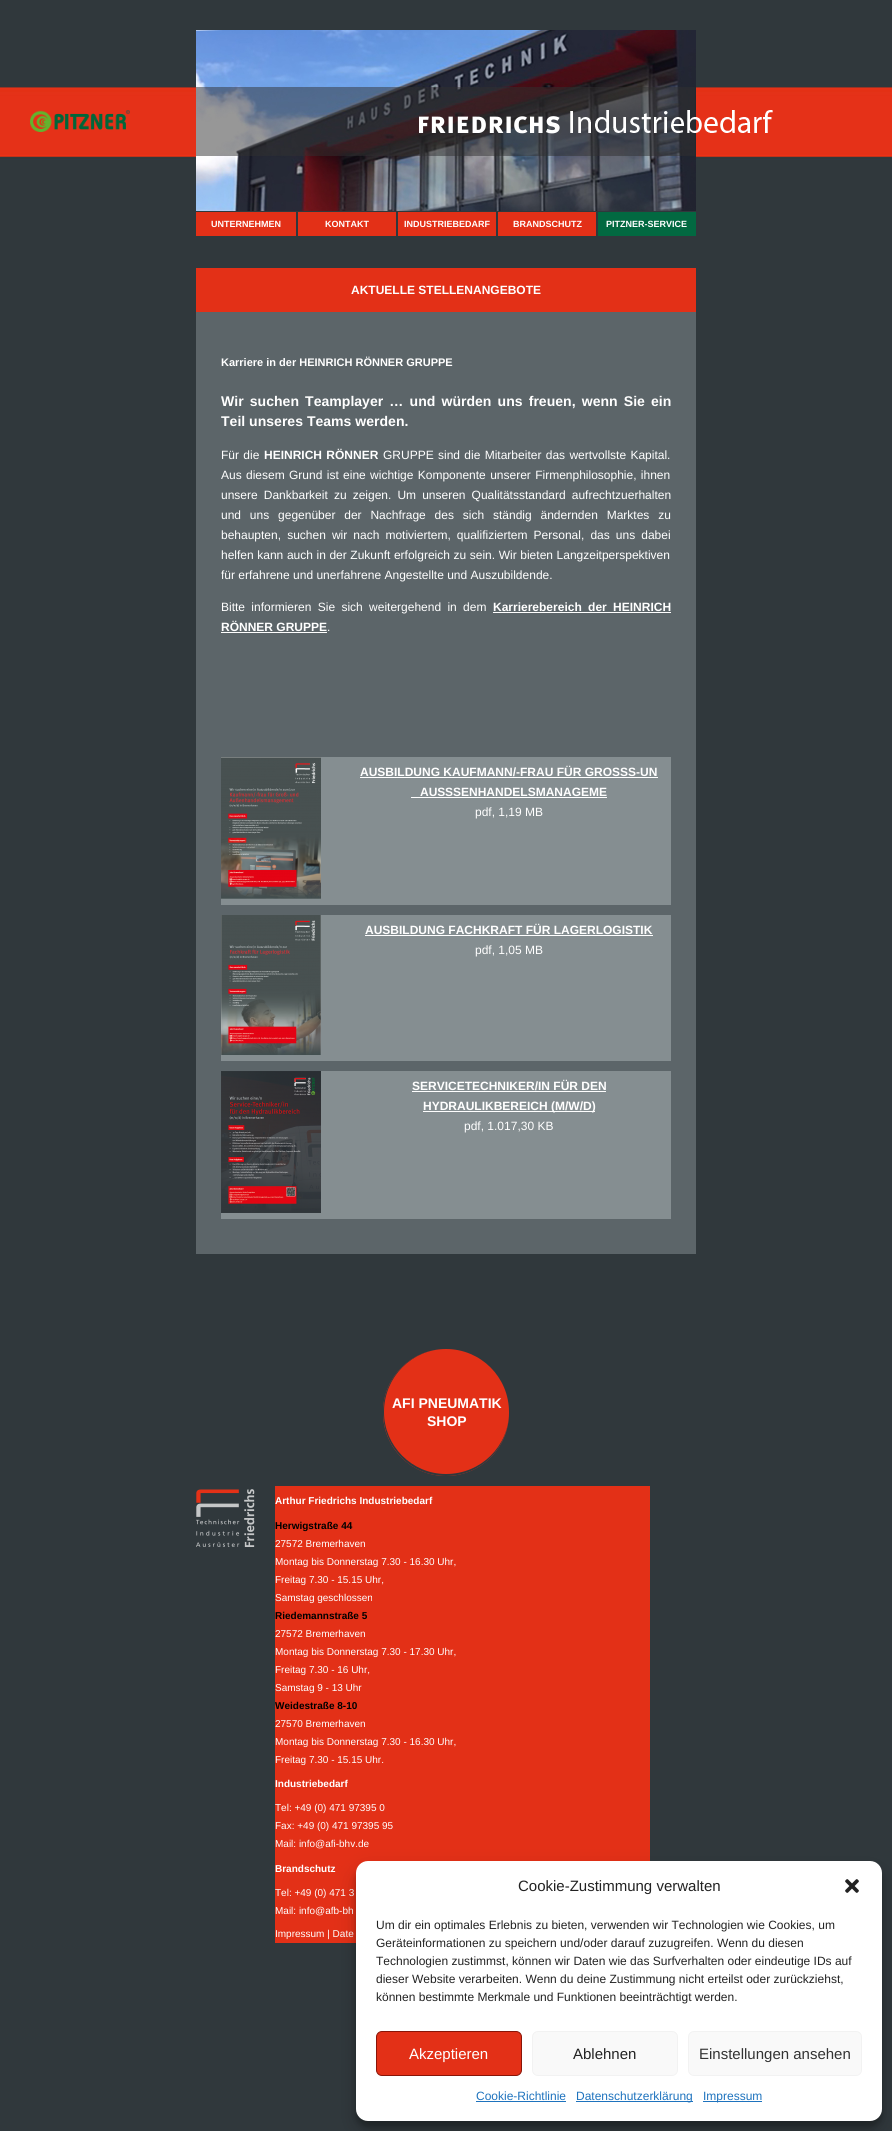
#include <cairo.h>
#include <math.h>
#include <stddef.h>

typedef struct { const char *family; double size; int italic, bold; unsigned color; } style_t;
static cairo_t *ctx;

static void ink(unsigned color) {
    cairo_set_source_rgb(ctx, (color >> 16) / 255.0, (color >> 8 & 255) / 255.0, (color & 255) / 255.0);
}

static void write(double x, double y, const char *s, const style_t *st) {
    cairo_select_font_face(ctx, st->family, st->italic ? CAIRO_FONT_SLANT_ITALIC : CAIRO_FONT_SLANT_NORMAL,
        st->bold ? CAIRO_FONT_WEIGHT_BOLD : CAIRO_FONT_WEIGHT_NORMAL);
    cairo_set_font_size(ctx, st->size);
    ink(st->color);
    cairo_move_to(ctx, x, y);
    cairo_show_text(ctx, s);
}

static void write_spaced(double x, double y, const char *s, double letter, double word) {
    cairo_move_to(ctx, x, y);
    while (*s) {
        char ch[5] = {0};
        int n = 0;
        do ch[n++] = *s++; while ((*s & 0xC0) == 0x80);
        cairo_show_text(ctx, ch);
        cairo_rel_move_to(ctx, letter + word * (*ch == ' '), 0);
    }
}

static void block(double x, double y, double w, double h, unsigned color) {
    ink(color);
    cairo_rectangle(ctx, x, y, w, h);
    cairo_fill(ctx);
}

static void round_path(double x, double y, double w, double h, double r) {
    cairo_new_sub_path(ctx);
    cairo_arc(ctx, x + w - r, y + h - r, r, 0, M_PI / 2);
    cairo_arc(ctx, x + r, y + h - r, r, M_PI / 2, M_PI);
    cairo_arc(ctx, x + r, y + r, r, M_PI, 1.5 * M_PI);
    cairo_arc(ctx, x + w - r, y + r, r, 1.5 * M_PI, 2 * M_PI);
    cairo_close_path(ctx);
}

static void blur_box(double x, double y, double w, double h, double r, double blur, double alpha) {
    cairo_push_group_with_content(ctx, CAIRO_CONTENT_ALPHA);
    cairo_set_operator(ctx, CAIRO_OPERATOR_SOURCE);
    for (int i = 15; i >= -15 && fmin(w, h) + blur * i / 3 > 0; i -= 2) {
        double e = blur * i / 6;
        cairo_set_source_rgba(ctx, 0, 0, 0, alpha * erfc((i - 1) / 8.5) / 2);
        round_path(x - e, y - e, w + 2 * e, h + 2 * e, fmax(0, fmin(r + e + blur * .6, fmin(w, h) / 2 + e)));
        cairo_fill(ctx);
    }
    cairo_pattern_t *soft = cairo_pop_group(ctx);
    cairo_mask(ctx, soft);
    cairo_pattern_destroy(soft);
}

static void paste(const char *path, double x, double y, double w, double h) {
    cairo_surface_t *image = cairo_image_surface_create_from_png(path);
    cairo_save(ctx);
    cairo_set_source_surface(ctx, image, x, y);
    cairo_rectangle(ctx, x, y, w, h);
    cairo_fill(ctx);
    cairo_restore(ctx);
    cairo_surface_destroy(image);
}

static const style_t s1 = {"Liberation Sans", 9, 0, 1, 0xffffff};
static const style_t s2 = {"Liberation Sans", 12, 0, 1, 0xffffff};
static const style_t s3 = {"Liberation Sans", 11, 0, 1, 0xffffff};
static const style_t s4 = {"Liberation Sans", 14.05, 0, 1, 0xffffff};
static const style_t s5 = {"Liberation Sans", 12, 0, 0, 0xffffff};
static const style_t s6 = {"Liberation Sans", 14, 0, 1, 0xffffff};
static const style_t s7 = {"Liberation Sans", 10, 0, 1, 0xffffff};
static const style_t s8 = {"Liberation Sans", 10, 0, 1, 0x000000};
static const style_t s9 = {"Liberation Sans", 10, 0, 0, 0xffffff};
static const style_t s10 = {"Liberation Sans", 15, 0, 0, 0x222222};
static const style_t s11 = {"Liberation Sans", 12, 0, 0, 0x222222};
static const style_t s12 = {"Liberation Sans", 15, 0, 0, 0xffffff};
static const style_t s13 = {"Liberation Sans", 15, 0, 0, 0x333333};
static const style_t s14 = {"Liberation Sans", 12, 0, 0, 0x1e73be};

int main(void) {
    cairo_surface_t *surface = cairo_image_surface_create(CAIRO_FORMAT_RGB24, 892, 2131);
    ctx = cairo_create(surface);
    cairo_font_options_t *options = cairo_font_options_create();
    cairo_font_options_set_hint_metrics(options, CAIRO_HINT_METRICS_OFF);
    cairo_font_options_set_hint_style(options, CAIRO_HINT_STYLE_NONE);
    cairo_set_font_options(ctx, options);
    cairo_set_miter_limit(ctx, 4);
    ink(0x30383c);
    cairo_paint(ctx);
    paste("pic1.png", 0, 87, 892, 73);
    paste("pic2.png", 30, 110, 100, 22);
    paste("pic3.png", 196, 30, 500, 181);
    paste("pic4.png", 419, 110, 354, 24);
    block(196, 212, 100, 24, 0xe33017);
    write(211, 227, "UNTERNEHMEN", &s1);
    block(298, 212, 98, 24, 0xe33017);
    write(325, 227, "KONTAKT", &s1);
    block(398, 212, 98, 24, 0xe33017);
    write(404, 227, "INDUSTRIEBEDARF", &s1);
    block(498, 212, 98, 24, 0xe33017);
    write(513, 227, "BRANDSCHUTZ", &s1);
    block(598, 212, 98, 24, 0x026941);
    write(606, 227, "PITZNER-SERVICE", &s1);
    block(196, 312, 500, 942, 0x5c6569);
    block(196, 268, 500, 44, 0xe33017);
    write(351, 294, "AKTUELLE STELLENANGEBOTE", &s2);
    write(221, 366, "Karriere in der HEINRICH RÖNNER GRUPPE", &s3);
    cairo_set_font_size(ctx, 14.05);
    write_spaced(221, 406, "Wir suchen Teamplayer … und würden uns freuen, wenn Sie ein", 0, 2.25);
    write(221, 426, "Teil unseres Teams werden.", &s4);
    cairo_select_font_face(ctx, "Liberation Sans", CAIRO_FONT_SLANT_NORMAL, CAIRO_FONT_WEIGHT_NORMAL);
    cairo_set_font_size(ctx, 12);
    write_spaced(221, 459, "Für die", 0, 1);
    cairo_select_font_face(ctx, "Liberation Sans", CAIRO_FONT_SLANT_NORMAL, CAIRO_FONT_WEIGHT_BOLD);
    write_spaced(264, 459, "HEINRICH RÖNNER", 0, 1);
    cairo_select_font_face(ctx, "Liberation Sans", CAIRO_FONT_SLANT_NORMAL, CAIRO_FONT_WEIGHT_NORMAL);
    write_spaced(383, 459, "GRUPPE sind die Mitarbeiter das wertvollste Kapital.", 0, 1);
    write_spaced(221, 479, "Aus diesem Grund ist eine wichtige Komponente unserer Firmenphilosophie, ihnen", 0, 1);
    write_spaced(221, 499, "unsere Dankbarkeit zu zeigen. Um unseren Qualitätsstandard aufrechtzuerhalten", 0, 2.75);
    write_spaced(221, 519, "und uns gegenüber der Nachfrage des sich ständig ändernden Marktes zu", 0, 5.5);
    write_spaced(221, 539, "behaupten, suchen wir nach motiviertem, qualifiziertem Personal, das uns dabei", 0, 2.75);
    write_spaced(221, 559, "helfen kann auch in der Zukunft erfolgreich zu sein. Wir bieten Langzeitperspektiven", 0, 0.25);
    write(221, 579, "für erfahrene und unerfahrene Angestellte und Auszubildende.", &s5);
    write_spaced(221, 611, "Bitte informieren Sie sich weitergehend in dem", 0, 3);
    cairo_select_font_face(ctx, "Liberation Sans", CAIRO_FONT_SLANT_NORMAL, CAIRO_FONT_WEIGHT_BOLD);
    write_spaced(493, 611, "Karrierebereich der HEINRICH", 0, 3);
    block(493, 612, 178, 1, 0xffffff);
    write(221, 631, "RÖNNER GRUPPE", &s2);
    block(221, 632, 106, 1, 0xffffff);
    write(327, 631, ".", &s5);
    block(221, 757, 450, 148, 0x858e91);
    paste("pic5.png", 221, 757, 100, 142);
    write(360, 776, "AUSBILDUNG KAUFMANN/-FRAU FÜR GROSSS-UN", &s2);
    block(360, 777, 298, 1, 0xffffff);
    write(420, 796, "AUS", &s2);
    block(411, 797, 196, 1, 0xffffff);
    write(445, 796, "SSENHANDELSMANAGEME", &s2);
    write(475, 816, "pdf, 1,19 MB", &s5);
    block(221, 915, 450, 146, 0x858e91);
    paste("pic6.png", 221, 915, 100, 140);
    write(365, 934, "AUSBILDUNG FACHKRAFT FÜR LAGERLOGISTIK", &s2);
    block(365, 935, 288, 1, 0xffffff);
    write(475, 954, "pdf, 1,05 MB", &s5);
    block(221, 1071, 450, 148, 0x858e91);
    paste("pic7.png", 221, 1071, 100, 142);
    write(412, 1090, "SERVICETECHNIKER/IN FÜR DEN", &s2);
    block(412, 1091, 194, 1, 0xffffff);
    block(423, 1111, 172, 1, 0xffffff);
    write(423, 1110, "HYDRAULIKBEREICH (M/W/D)", &s2);
    write(464, 1130, "pdf, 1.017,30 KB", &s5);
    ink(0xe33017);
    round_path(383, 1349, 126, 127, 63);
    cairo_fill(ctx);
    ink(0x30383c);
    cairo_set_fill_rule(ctx, CAIRO_FILL_RULE_EVEN_ODD);
    cairo_new_path(ctx);
    cairo_move_to(ctx, 446, 1349);
    cairo_curve_to(ctx, 481, 1349, 509, 1377, 509, 1412);
    cairo_curve_to(ctx, 509, 1448, 481, 1476, 446, 1476);
    cairo_curve_to(ctx, 411, 1476, 383, 1448, 383, 1412);
    cairo_curve_to(ctx, 383, 1377, 411, 1349, 446, 1349);
    cairo_close_path(ctx);
    cairo_move_to(ctx, 446, 1349);
    cairo_curve_to(ctx, 481, 1349, 509, 1377, 509, 1412);
    cairo_curve_to(ctx, 509, 1446, 481, 1474, 446, 1474);
    cairo_curve_to(ctx, 412, 1474, 384, 1446, 384, 1412);
    cairo_curve_to(ctx, 384, 1377, 412, 1349, 446, 1349);
    cairo_close_path(ctx);
    cairo_fill(ctx);
    write(392, 1408, "AFI PNEUMATIK", &s6);
    write(427, 1426, "SHOP", &s6);
    paste("pic8.png", 196, 1489, 59, 58);
    block(275, 1486, 375, 457, 0xe33017);
    write(275, 1504, "Arthur Friedrichs Industriebedarf", &s7);
    write(275, 1529, "Herwigstraße 44", &s8);
    write(275, 1547, "27572 Bremerhaven", &s9);
    write(275, 1565, "Montag bis Donnerstag 7.30 - 16.30 Uhr,", &s9);
    write(275, 1583, "Freitag 7.30 - 15.15 Uhr,", &s9);
    write(275, 1601, "Samstag geschlossen", &s9);
    write(275, 1619, "Riedemannstraße 5", &s8);
    write(275, 1637, "27572 Bremerhaven", &s9);
    write(275, 1655, "Montag bis Donnerstag 7.30 - 17.30 Uhr,", &s9);
    write(275, 1673, "Freitag 7.30 - 16 Uhr,", &s9);
    write(275, 1691, "Samstag 9 - 13 Uhr", &s9);
    write(275, 1709, "Weidestraße 8-10", &s8);
    write(275, 1727, "27570 Bremerhaven", &s9);
    write(275, 1745, "Montag bis Donnerstag 7.30 - 16.30 Uhr,", &s9);
    write(275, 1763, "Freitag 7.30 - 15.15 Uhr.", &s9);
    write(275, 1787, "Industriebedarf", &s7);
    write(275, 1811, "Tel: +49 (0) 471 97395 0", &s9);
    write(275, 1829, "Fax: +49 (0) 471 97395 95", &s9);
    write(275, 1847, "Mail: info@afi-bhv.de", &s9);
    write(275, 1872, "Brandschutz", &s7);
    write(275, 1896, "Tel: +49 (0) 471 3", &s9);
    write(275, 1914, "Mail: info@afb-bh", &s9);
    write(275, 1937, "Impressum | Date", &s9);
    ink(0x000000);
    blur_box(356, 1867, 526, 260, 12, 3, 0.23);
    blur_box(356, 1871, 526, 260, 12, 10, 0.19);
    ink(0xffffff);
    round_path(356, 1861, 526, 260, 12);
    cairo_fill(ctx);
    write(518, 1891, "Cookie-Zustimmung verwalten", &s10);
    paste("pic9.png", 845, 1879, 14, 14);
    write(376, 1929, "Um dir ein optimales Erlebnis zu bieten, verwenden wir Technologien wie Cookies, um", &s11);
    write(376, 1947, "Geräteinformationen zu speichern und/oder darauf zuzugreifen. Wenn du diesen", &s11);
    write(376, 1965, "Technologien zustimmst, können wir Daten wie das Surfverhalten oder eindeutige IDs auf", &s11);
    write(376, 1983, "dieser Website verarbeiten. Wenn du deine Zustimmung nicht erteilst oder zurückziehst,", &s11);
    write(376, 2001, "können bestimmte Merkmale und Funktionen beeinträchtigt werden.", &s11);
    ink(0xe33017);
    round_path(376.5, 2031.5, 145, 44, 5.5);
    cairo_fill_preserve(ctx);
    ink(0x891508);
    cairo_set_line_width(ctx, 1);
    cairo_stroke(ctx);
    write(409, 2059, "Akzeptieren", &s12);
    ink(0xf9f9f9);
    round_path(532.5, 2031.5, 145, 44, 5.5);
    cairo_fill_preserve(ctx);
    ink(0xf2f2f2);
    cairo_stroke(ctx);
    write(573, 2059, "Ablehnen", &s10);
    ink(0xf9f9f9);
    round_path(688.5, 2031.5, 173, 44, 5.5);
    cairo_fill_preserve(ctx);
    ink(0xf2f2f2);
    cairo_stroke(ctx);
    write(699, 2059, "Einstellungen ansehen", &s13);
    write(476, 2100, "Cookie-Richtlinie", &s14);
    block(476, 2101, 90, 1, 0x1e73be);
    block(576, 2101, 117, 1, 0x1e73be);
    write(576, 2100, "Datenschutzerklärung", &s14);
    block(703, 2101, 59, 1, 0x1e73be);
    write(703, 2100, "Impressum", &s14);
    cairo_surface_write_to_png(surface, "screenshot.png");
    cairo_font_options_destroy(options);
    cairo_destroy(ctx);
    cairo_surface_destroy(surface);
    return 0;
}
